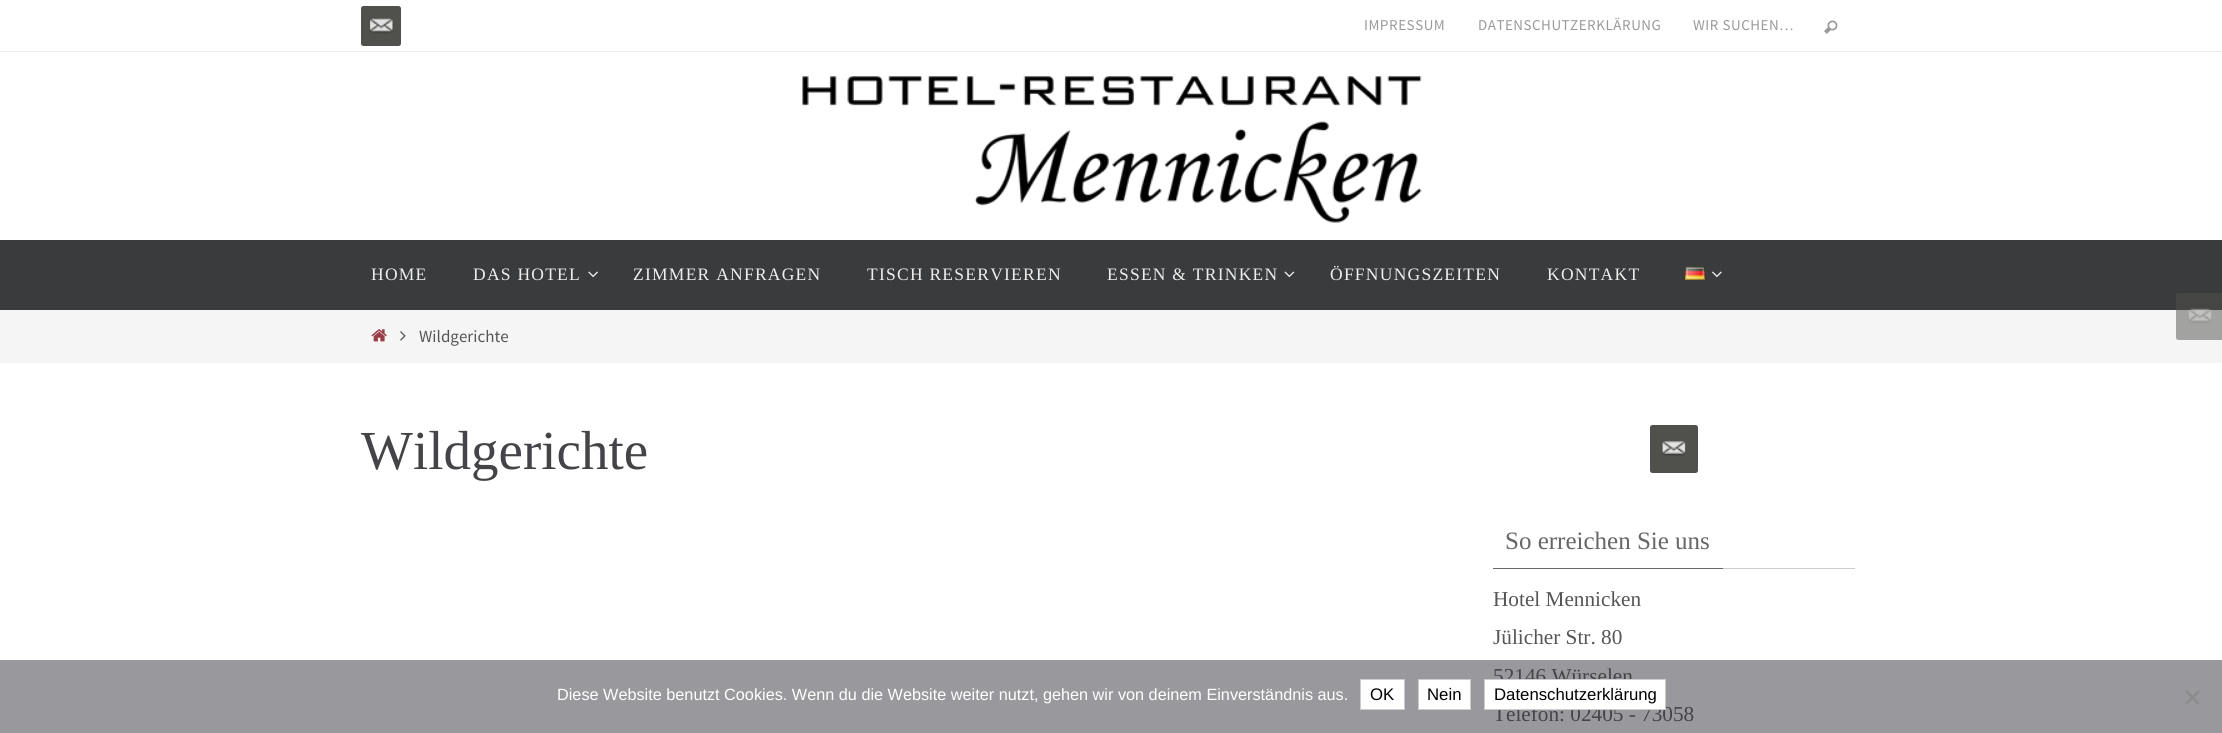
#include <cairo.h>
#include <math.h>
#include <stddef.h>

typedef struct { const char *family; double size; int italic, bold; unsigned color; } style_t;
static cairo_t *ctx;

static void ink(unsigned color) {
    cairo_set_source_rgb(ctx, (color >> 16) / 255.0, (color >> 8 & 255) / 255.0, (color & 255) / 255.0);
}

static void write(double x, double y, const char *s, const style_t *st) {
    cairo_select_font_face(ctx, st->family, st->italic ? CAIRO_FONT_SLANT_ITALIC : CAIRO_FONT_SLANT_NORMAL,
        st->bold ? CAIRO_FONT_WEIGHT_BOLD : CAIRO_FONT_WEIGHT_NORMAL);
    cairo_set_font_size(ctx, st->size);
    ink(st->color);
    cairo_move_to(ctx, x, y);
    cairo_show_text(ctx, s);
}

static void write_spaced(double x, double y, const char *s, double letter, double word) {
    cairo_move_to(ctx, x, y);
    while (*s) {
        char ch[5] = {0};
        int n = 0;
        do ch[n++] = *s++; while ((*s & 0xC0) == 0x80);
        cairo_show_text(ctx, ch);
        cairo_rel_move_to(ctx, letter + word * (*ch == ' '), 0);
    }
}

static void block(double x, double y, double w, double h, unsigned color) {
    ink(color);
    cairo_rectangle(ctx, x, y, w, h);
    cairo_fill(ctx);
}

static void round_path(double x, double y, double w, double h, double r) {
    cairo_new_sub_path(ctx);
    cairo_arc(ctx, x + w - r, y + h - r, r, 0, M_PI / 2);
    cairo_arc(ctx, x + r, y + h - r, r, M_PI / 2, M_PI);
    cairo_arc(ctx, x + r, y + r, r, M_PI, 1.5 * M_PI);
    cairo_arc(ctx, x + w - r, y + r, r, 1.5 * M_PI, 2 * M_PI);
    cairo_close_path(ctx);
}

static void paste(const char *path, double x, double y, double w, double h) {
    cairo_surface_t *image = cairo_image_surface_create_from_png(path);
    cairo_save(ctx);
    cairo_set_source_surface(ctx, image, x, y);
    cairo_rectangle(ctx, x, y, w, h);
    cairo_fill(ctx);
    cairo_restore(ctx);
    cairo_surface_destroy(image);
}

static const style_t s1 = {"Source Sans Pro", 17, 0, 0, 0x555555};
static const style_t s2 = {"Liberation Serif", 55, 0, 0, 0x444448};
static const style_t s3 = {"Liberation Serif", 25, 0, 0, 0x666666};
static const style_t s4 = {"Liberation Serif", 21.25, 0, 0, 0x555555};
static const style_t s5 = {"Liberation Serif", 21.25, 0, 0, 0x444448};
static const style_t s6 = {"Liberation Sans", 16.25, 0, 0, 0xffffff};
static const style_t s7 = {"Liberation Sans", 16.75, 0, 0, 0x000000};

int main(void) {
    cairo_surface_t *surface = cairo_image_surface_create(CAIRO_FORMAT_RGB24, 2222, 733);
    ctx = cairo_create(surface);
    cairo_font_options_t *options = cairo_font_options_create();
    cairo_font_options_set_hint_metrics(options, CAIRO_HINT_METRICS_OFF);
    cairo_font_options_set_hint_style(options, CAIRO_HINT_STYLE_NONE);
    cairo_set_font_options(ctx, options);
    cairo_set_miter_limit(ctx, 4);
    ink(0xffffff);
    cairo_paint(ctx);
    block(0, 660, 2222, 73, 0x99999d);
    block(0, 51, 2222, 1, 0xebebeb);
    ink(0x50514d);
    round_path(361, 6, 40, 40, 2.5);
    cairo_fill(ctx);
    paste("pic1.png", 369, 18, 25, 16);
    cairo_select_font_face(ctx, "Source Sans Pro", CAIRO_FONT_SLANT_NORMAL, CAIRO_FONT_WEIGHT_NORMAL);
    cairo_set_font_size(ctx, 15);
    ink(0x999999);
    write_spaced(1364, 30, "IMPRESSUM", 0.5, 0);
    write_spaced(1478, 30, "DATENSCHUTZERKLÄRUNG", 0.5, 0);
    write_spaced(1693, 30, "WIR SUCHEN", 0.5, 0);
    cairo_select_font_face(ctx, "Liberation Serif", CAIRO_FONT_SLANT_NORMAL, CAIRO_FONT_WEIGHT_NORMAL);
    write_spaced(1779, 30, "…", 0.5, 0);
    paste("pic2.png", 1824, 20, 14, 14);
    paste("pic3.png", 802, 76, 620, 147);
    block(0, 240, 2222, 70, 0x3a3b3d);
    cairo_set_font_size(ctx, 17.5);
    ink(0xeeeeee);
    write_spaced(371, 280, "HOME", 1.25, 0);
    write_spaced(473, 280, "DAS HOTEL", 1.25, 0);
    paste("pic4.png", 588, 271, 10, 7);
    write_spaced(633, 280, "ZIMMER ANFRAGEN", 1.25, 0);
    write_spaced(867, 280, "TISCH RESERVIEREN", 1.25, 0);
    write_spaced(1107, 280, "ESSEN & TRINKEN", 1.25, 0);
    paste("pic5.png", 1284, 271, 11, 7);
    write_spaced(1330, 280, "ÖFFNUNGSZEITEN", 1.25, 0);
    write_spaced(1547, 280, "KONTAKT", 1.25, 0);
    paste("pic6.png", 1685, 266, 20, 14);
    paste("pic7.png", 1712, 271, 10, 7);
    block(0, 310, 2222, 53, 0xf5f5f5);
    paste("pic8.png", 371, 329, 16, 13);
    paste("pic9.png", 400, 331, 6, 10);
    write(419, 342, "Wildgerichte", &s1);
    cairo_set_source_rgba(ctx, 0.314, 0.318, 0.302, 0.5);
    round_path(2176, 293, 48, 47, 2.5);
    cairo_fill(ctx);
    paste("pic10.png", 2188, 308, 24, 15);
    write(361, 469, "Wildgerichte", &s2);
    ink(0x50514d);
    round_path(1650, 425, 48, 48, 2.5);
    cairo_fill(ctx);
    paste("pic11.png", 1661, 441, 25, 15);
    block(1723, 568, 132, 1, 0xcccccc);
    block(1493, 568, 230, 1, 0x666666);
    write(1505, 549, "So erreichen Sie uns", &s3);
    write(1493, 606, "Hotel Mennicken", &s4);
    write(1493, 644, "Jülicher Str. 80", &s4);
    write(1493, 683, "52146 Würselen", &s5);
    write(1493, 721, "Telefon: 02405 - 73058", &s5);
    write(557, 700, "Diese Website benutzt Cookies. Wenn du die Website weiter nutzt, gehen wir von deinem Einverständnis aus.", &s6);
    cairo_rectangle(ctx, 1360.5, 679.5, 44, 30);
    cairo_fill_preserve(ctx);
    ink(0xcccccc);
    cairo_set_line_width(ctx, 1);
    cairo_stroke(ctx);
    write(1370, 700, "OK", &s7);
    ink(0xffffff);
    cairo_rectangle(ctx, 1418.5, 679.5, 52, 30);
    cairo_fill_preserve(ctx);
    ink(0xcccccc);
    cairo_stroke(ctx);
    write(1427, 700, "Nein", &s7);
    ink(0xffffff);
    cairo_rectangle(ctx, 1484.5, 679.5, 181, 30);
    cairo_fill_preserve(ctx);
    ink(0xcccccc);
    cairo_stroke(ctx);
    write(1494, 700, "Datenschutzerklärung", &s7);
    ink(0x8c8c8e);
    cairo_new_path(ctx);
    cairo_move_to(ctx, 2198, 690);
    cairo_line_to(ctx, 2200, 692);
    cairo_line_to(ctx, 2187, 705);
    cairo_line_to(ctx, 2185, 703);
    cairo_close_path(ctx);
    cairo_fill(ctx);
    cairo_new_path(ctx);
    cairo_move_to(ctx, 2185, 692);
    cairo_line_to(ctx, 2187, 690);
    cairo_line_to(ctx, 2200, 703);
    cairo_line_to(ctx, 2198, 705);
    cairo_close_path(ctx);
    cairo_fill(ctx);
    cairo_surface_write_to_png(surface, "screenshot.png");
    cairo_font_options_destroy(options);
    cairo_destroy(ctx);
    cairo_surface_destroy(surface);
    return 0;
}
